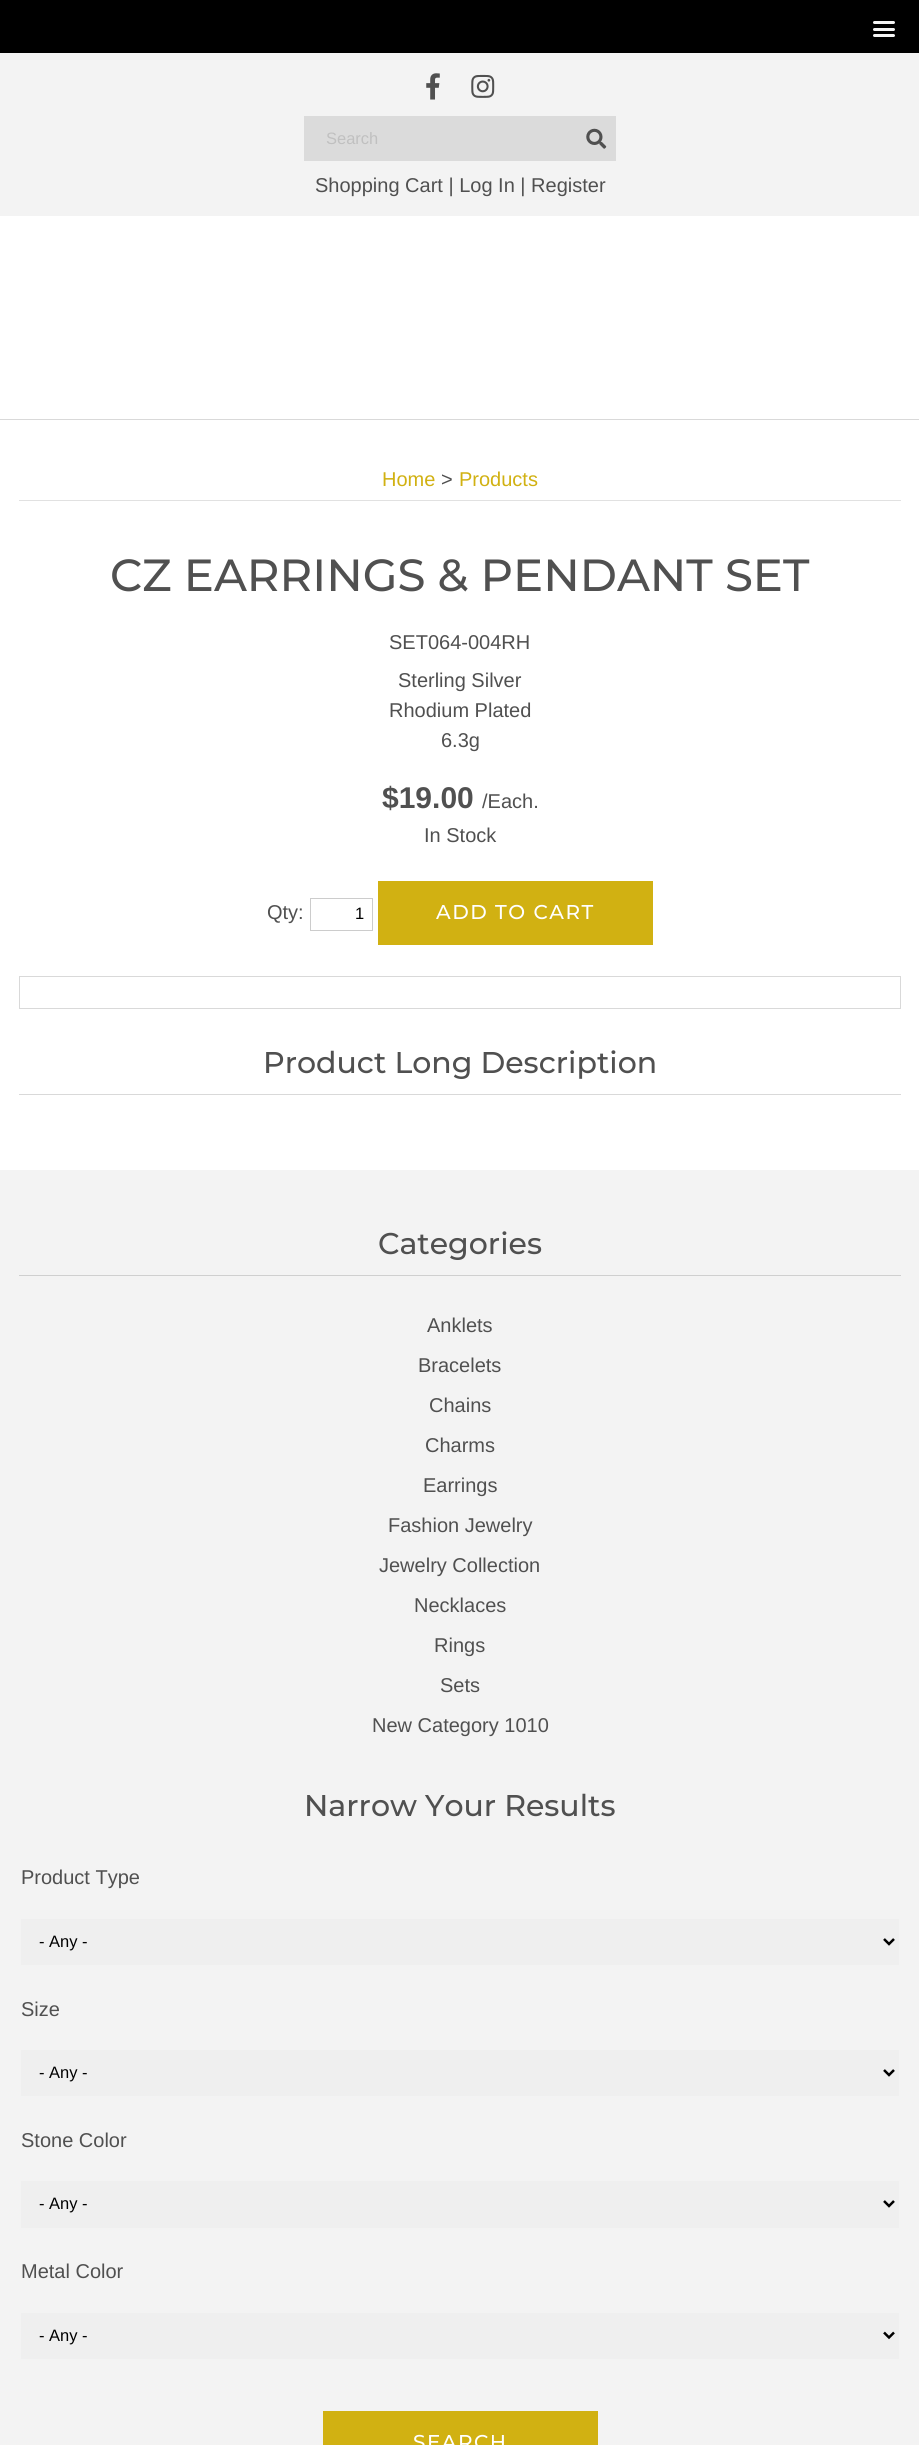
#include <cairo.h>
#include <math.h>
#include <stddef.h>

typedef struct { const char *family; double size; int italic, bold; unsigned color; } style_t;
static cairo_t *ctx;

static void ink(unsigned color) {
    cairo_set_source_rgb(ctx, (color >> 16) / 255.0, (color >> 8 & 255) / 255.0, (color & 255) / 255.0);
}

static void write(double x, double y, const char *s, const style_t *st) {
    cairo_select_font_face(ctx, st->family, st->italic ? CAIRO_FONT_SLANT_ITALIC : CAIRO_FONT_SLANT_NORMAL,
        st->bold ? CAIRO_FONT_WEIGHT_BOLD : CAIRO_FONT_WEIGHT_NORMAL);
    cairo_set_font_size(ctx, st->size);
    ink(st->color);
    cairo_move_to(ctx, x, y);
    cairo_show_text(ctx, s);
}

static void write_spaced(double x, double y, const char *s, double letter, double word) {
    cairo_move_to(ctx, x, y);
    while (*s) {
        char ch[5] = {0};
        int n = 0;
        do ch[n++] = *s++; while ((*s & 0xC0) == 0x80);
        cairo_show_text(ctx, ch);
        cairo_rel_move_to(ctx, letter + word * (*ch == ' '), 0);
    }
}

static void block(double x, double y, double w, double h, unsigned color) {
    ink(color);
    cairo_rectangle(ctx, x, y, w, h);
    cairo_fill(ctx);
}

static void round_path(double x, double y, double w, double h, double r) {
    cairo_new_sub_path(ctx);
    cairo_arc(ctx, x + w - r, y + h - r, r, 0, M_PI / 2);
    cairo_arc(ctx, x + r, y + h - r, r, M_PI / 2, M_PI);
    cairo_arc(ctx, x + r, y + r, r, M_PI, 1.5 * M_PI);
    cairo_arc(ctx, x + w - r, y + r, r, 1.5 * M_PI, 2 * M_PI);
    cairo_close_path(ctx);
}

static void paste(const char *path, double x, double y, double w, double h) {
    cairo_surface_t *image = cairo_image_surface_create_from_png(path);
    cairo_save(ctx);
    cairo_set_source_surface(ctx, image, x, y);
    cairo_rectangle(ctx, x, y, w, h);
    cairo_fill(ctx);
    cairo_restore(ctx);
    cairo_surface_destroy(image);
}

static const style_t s1 = {"Liberation Sans", 16.5, 0, 0, 0xc0c0c0};
static const style_t s2 = {"Liberation Sans", 20, 0, 0, 0x505050};
static const style_t s3 = {"Liberation Sans", 20, 0, 0, 0xd1b112};
static const style_t s4 = {"Montserrat Medium", 45, 0, 0, 0x505050};
static const style_t s5 = {"Liberation Sans", 30, 0, 1, 0x505050};
static const style_t s6 = {"Liberation Sans", 16.5, 0, 0, 0x000000};
static const style_t s7 = {"Montserrat Medium", 30, 0, 0, 0x505050};

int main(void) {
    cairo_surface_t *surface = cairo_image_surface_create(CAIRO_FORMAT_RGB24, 919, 2445);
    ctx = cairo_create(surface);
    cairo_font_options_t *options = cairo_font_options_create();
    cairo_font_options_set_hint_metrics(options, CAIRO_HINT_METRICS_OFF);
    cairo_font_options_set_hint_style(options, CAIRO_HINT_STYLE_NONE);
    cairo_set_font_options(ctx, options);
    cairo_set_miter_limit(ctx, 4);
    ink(0xffffff);
    cairo_paint(ctx);
    block(0, 0, 919, 53, 0x000000);
    ink(0xf5f5f5);
    round_path(873, 21, 22, 3, 1.5);
    cairo_fill(ctx);
    round_path(873, 28, 22, 3, 1.5);
    cairo_fill(ctx);
    round_path(873, 34, 22, 3, 1.5);
    cairo_fill(ctx);
    block(0, 419, 919, 1, 0xd9d9d9);
    block(0, 53, 919, 163, 0xf3f3f3);
    paste("pic1.png", 426, 73, 14, 27);
    paste("pic2.png", 471, 74, 24, 24);
    block(304, 116, 312, 45, 0xdbdbdb);
    write(326, 144, "Search", &s1);
    paste("pic3.png", 586, 128, 21, 21);
    write(315, 192, "Shopping Cart | Log In | Register", &s2);
    block(19, 500, 882, 1, 0xe1e1e1);
    write(382, 486, "Home", &s3);
    write(441, 486, ">", &s2);
    write(459, 486, "Products", &s3);
    write(110, 591, "CZ EARRINGS & PENDANT SET", &s4);
    write(389, 649, "SET064-004RH", &s2);
    write(398, 687, "Sterling Silver", &s2);
    write(389, 717, "Rhodium Plated", &s2);
    write(441, 747, "6.3g", &s2);
    write(382, 808, "$19.00", &s5);
    write(482, 808, "/Each.", &s2);
    write(424, 842, "In Stock", &s2);
    write(267, 919, "Qty:", &s2);
    cairo_rectangle(ctx, 310.5, 898.5, 62, 32);
    ink(0xcccccc);
    cairo_set_line_width(ctx, 1);
    cairo_stroke(ctx);
    write(355, 919, "1", &s6);
    block(378, 881, 275, 64, 0xd1b112);
    cairo_select_font_face(ctx, "Montserrat Medium", CAIRO_FONT_SLANT_NORMAL, CAIRO_FONT_WEIGHT_NORMAL);
    cairo_set_font_size(ctx, 20);
    ink(0xffffff);
    write_spaced(436, 919, "ADD TO CART", 1.5, 0);
    cairo_rectangle(ctx, 19.5, 976.5, 881, 32);
    ink(0xd9d9d9);
    cairo_stroke(ctx);
    block(19, 1094, 882, 1, 0xd9d9d9);
    write(263, 1073, "Product Long Description", &s7);
    block(0, 1170, 919, 1275, 0xf3f3f3);
    block(19, 1275, 882, 1, 0xcfcfcf);
    write(378, 1254, "Categories", &s7);
    write(427, 1332, "Anklets", &s2);
    write(418, 1372, "Bracelets", &s2);
    write(429, 1412, "Chains", &s2);
    write(425, 1452, "Charms", &s2);
    write(423, 1492, "Earrings", &s2);
    write(388, 1532, "Fashion Jewelry", &s2);
    write(379, 1572, "Jewelry Collection", &s2);
    write(414, 1612, "Necklaces", &s2);
    write(434, 1652, "Rings", &s2);
    write(440, 1692, "Sets", &s2);
    write(372, 1732, "New Category 1010", &s2);
    write(304, 1816, "Narrow Your Results", &s7);
    write(21, 1884, "Product Type", &s2);
    block(21, 1919, 878, 46, 0xefefef);
    cairo_new_path(ctx);
    cairo_move_to(ctx, 884, 1939);
    cairo_line_to(ctx, 889, 1944);
    cairo_line_to(ctx, 894, 1939);
    ink(0x000000);
    cairo_set_line_width(ctx, 2.5);
    cairo_stroke(ctx);
    write(39, 1947, "- Any -", &s6);
    write(21, 2016, "Size", &s2);
    block(21, 2050, 878, 46, 0xefefef);
    cairo_new_path(ctx);
    cairo_move_to(ctx, 884, 2070);
    cairo_line_to(ctx, 889, 2075);
    cairo_line_to(ctx, 894, 2070);
    ink(0x000000);
    cairo_stroke(ctx);
    write(39, 2078, "- Any -", &s6);
    write(21, 2147, "Stone Color", &s2);
    block(21, 2181, 878, 47, 0xefefef);
    cairo_new_path(ctx);
    cairo_move_to(ctx, 884, 2201);
    cairo_line_to(ctx, 889, 2206);
    cairo_line_to(ctx, 894, 2201);
    ink(0x000000);
    cairo_stroke(ctx);
    write(39, 2209, "- Any -", &s6);
    write(21, 2278, "Metal Color", &s2);
    block(21, 2313, 878, 46, 0xefefef);
    cairo_new_path(ctx);
    cairo_move_to(ctx, 884, 2332.5);
    cairo_line_to(ctx, 889, 2337.5);
    cairo_line_to(ctx, 894, 2332.5);
    ink(0x000000);
    cairo_stroke(ctx);
    write(39, 2341, "- Any -", &s6);
    block(323, 2411, 275, 34, 0xd1b112);
    cairo_select_font_face(ctx, "Montserrat Medium", CAIRO_FONT_SLANT_NORMAL, CAIRO_FONT_WEIGHT_NORMAL);
    cairo_set_font_size(ctx, 20);
    ink(0xffffff);
    write_spaced(413, 2449, "SEARCH", 1.5, 0);
    cairo_surface_write_to_png(surface, "screenshot.png");
    cairo_font_options_destroy(options);
    cairo_destroy(ctx);
    cairo_surface_destroy(surface);
    return 0;
}
